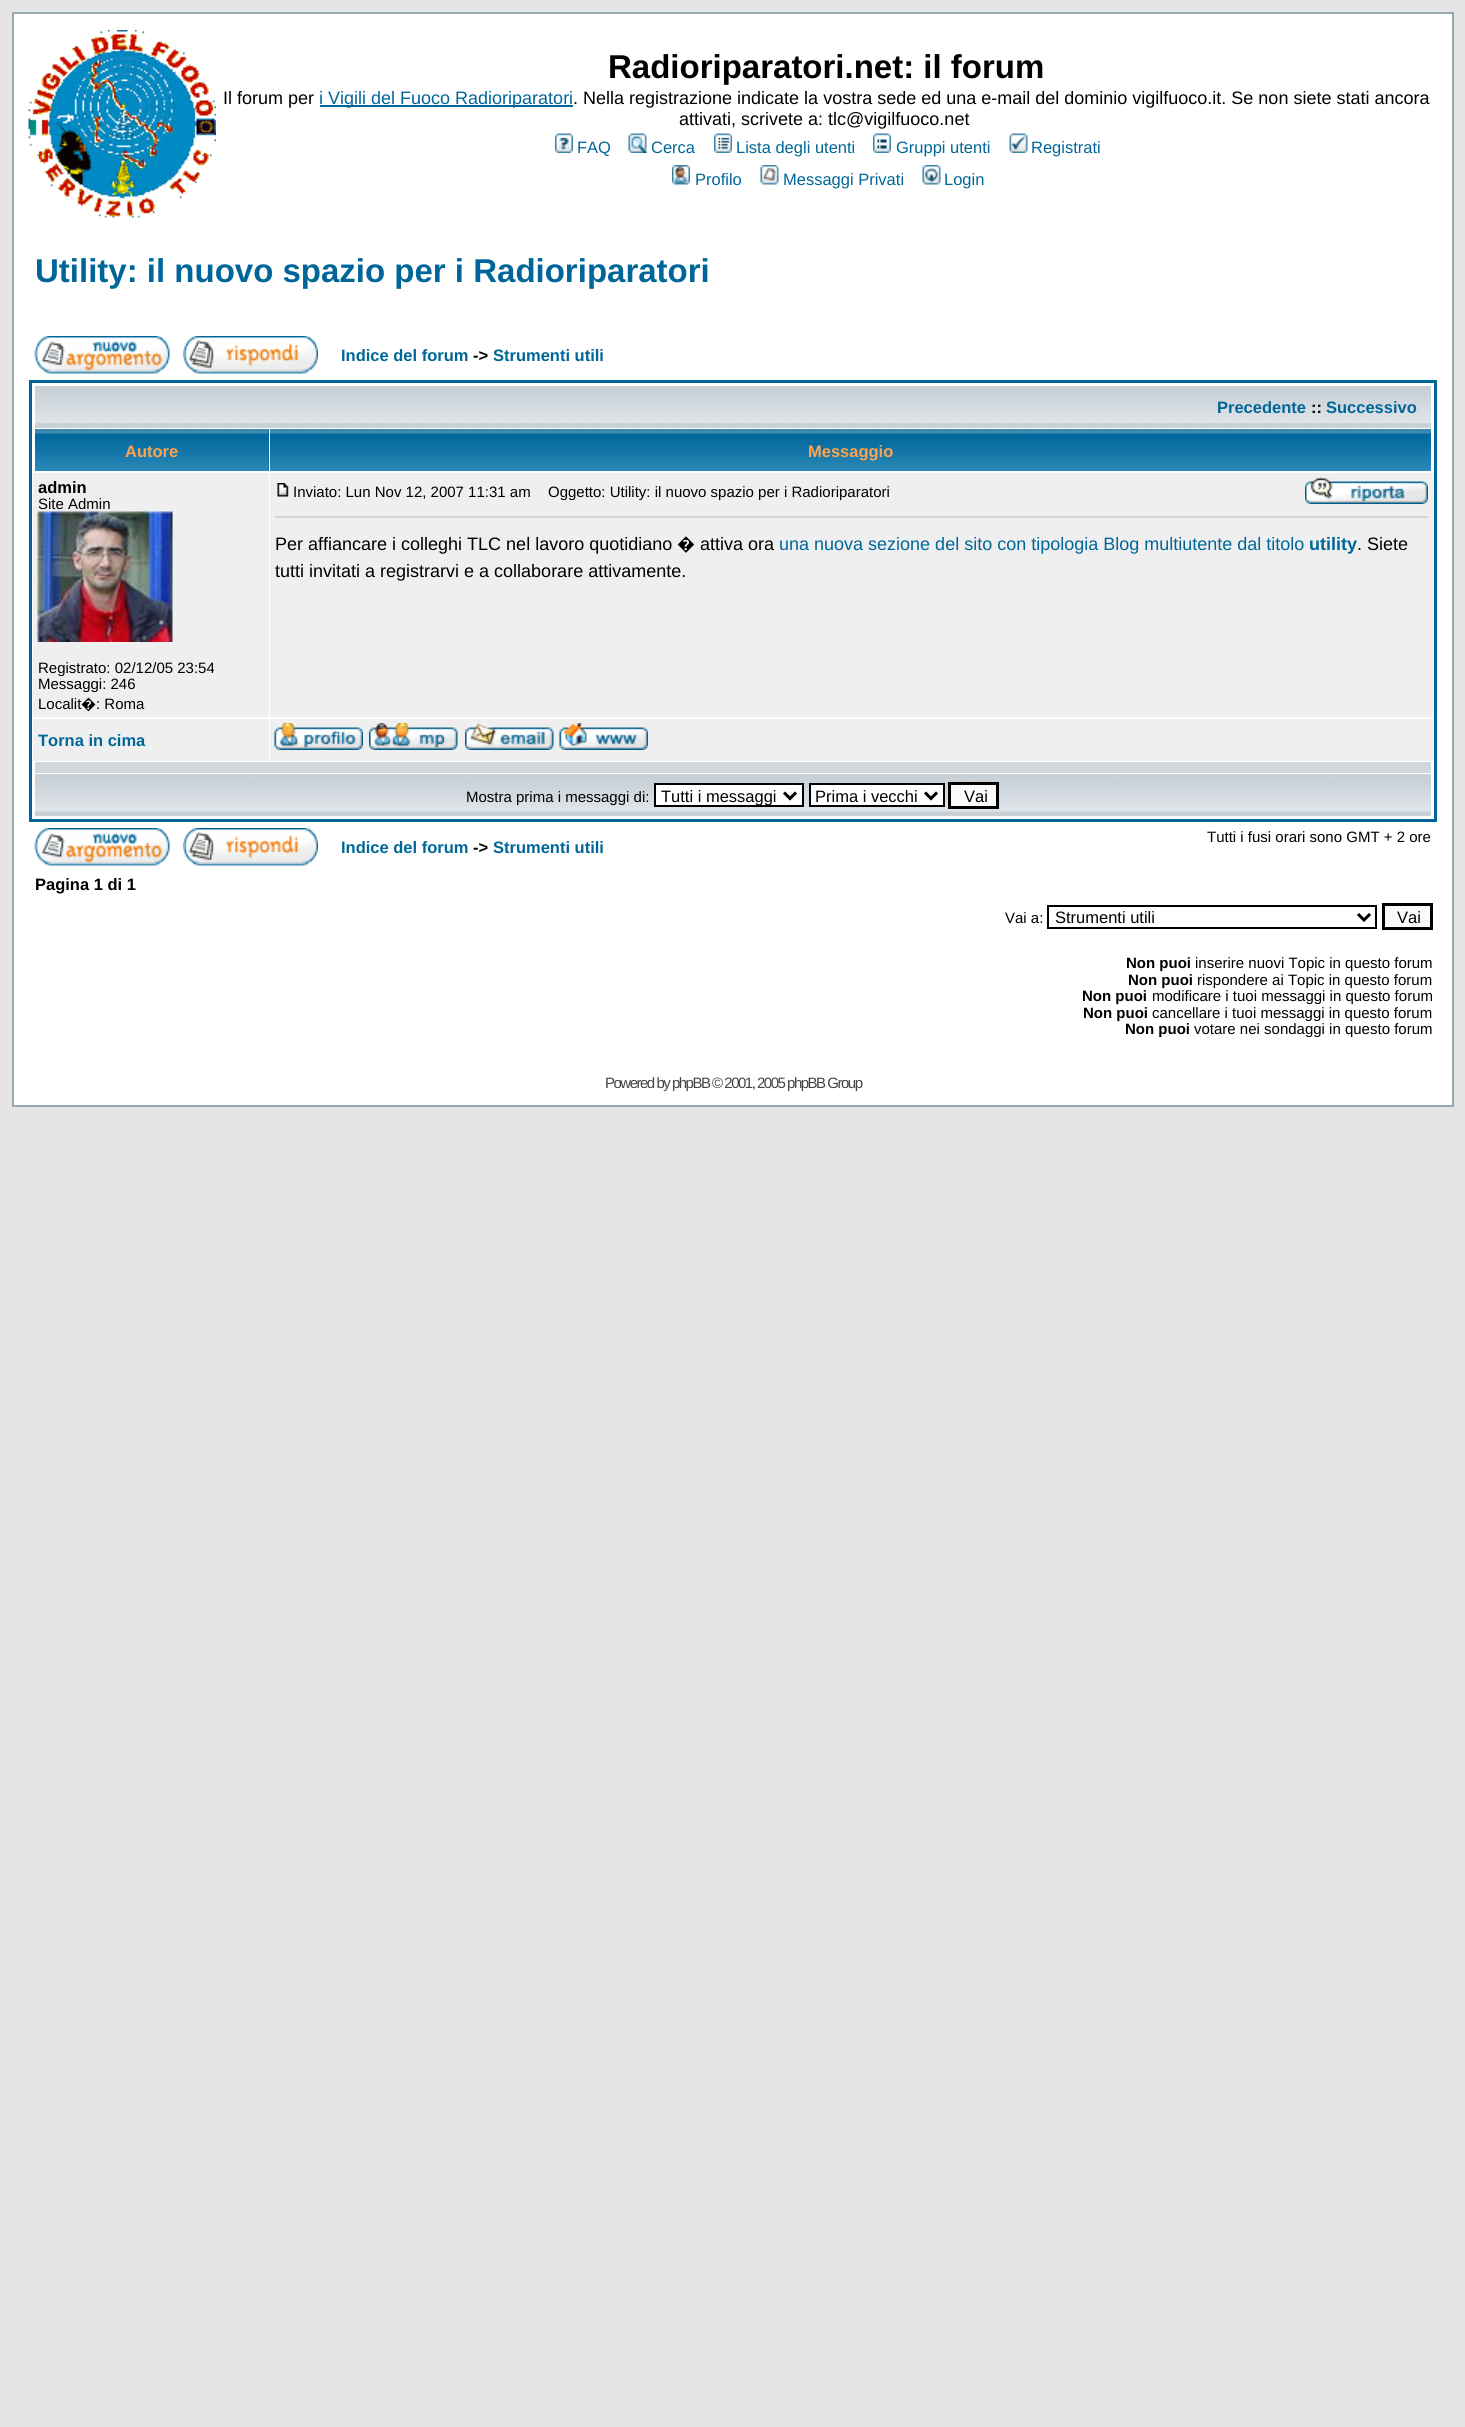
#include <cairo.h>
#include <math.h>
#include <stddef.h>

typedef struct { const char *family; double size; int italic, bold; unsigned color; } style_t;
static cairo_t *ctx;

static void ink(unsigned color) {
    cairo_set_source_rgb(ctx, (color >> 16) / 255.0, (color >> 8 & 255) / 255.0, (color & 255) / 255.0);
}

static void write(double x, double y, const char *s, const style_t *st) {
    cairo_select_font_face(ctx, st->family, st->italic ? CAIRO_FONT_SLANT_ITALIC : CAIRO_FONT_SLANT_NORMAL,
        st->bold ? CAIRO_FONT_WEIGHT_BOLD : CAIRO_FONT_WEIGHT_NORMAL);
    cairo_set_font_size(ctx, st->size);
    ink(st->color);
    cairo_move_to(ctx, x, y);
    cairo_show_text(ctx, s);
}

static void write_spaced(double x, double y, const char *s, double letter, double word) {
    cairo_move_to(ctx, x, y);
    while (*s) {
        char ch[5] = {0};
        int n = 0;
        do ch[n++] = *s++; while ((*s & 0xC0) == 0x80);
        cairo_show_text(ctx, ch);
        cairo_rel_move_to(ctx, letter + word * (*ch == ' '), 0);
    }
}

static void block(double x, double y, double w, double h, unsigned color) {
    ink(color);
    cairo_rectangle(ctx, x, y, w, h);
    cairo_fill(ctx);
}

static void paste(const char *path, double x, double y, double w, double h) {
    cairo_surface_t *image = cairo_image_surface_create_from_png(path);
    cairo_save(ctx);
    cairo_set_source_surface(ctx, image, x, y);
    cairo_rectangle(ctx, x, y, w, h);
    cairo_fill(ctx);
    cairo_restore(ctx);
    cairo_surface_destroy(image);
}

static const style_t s1 = {"Liberation Sans", 33, 0, 1, 0x000000};
static const style_t s2 = {"Liberation Sans", 18, 0, 0, 0x000000};
static const style_t s3 = {"Liberation Sans", 18, 0, 0, 0x006699};
static const style_t s4 = {"Liberation Sans", 16.5, 0, 0, 0x006699};
static const style_t s5 = {"Liberation Sans", 33, 0, 1, 0x006699};
static const style_t s6 = {"Liberation Sans", 16.5, 0, 1, 0x006699};
static const style_t s7 = {"Liberation Sans", 16.5, 0, 1, 0x000000};
static const style_t s8 = {"Liberation Sans", 16.5, 0, 1, 0xffa34f};
static const style_t s9 = {"Liberation Sans", 15, 0, 0, 0x000000};
static const style_t s10 = {"Noto Sans", 15, 0, 0, 0x000000};
static const style_t s11 = {"Noto Sans", 18, 0, 0, 0x000000};
static const style_t s12 = {"Liberation Sans", 18, 0, 1, 0x006699};
static const style_t s13 = {"Liberation Sans", 16.5, 0, 0, 0x000000};
static const style_t s14 = {"Liberation Sans", 15, 0, 1, 0x000000};

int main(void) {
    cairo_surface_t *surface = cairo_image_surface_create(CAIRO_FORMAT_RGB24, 1465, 2427);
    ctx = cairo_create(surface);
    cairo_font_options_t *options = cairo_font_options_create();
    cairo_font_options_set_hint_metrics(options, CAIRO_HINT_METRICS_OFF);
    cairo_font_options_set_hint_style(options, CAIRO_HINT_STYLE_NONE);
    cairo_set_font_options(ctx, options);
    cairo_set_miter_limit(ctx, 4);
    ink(0xe5e5e5);
    cairo_paint(ctx);
    ink(0xffffff);
    cairo_rectangle(ctx, 13, 13, 1440, 1093);
    cairo_fill_preserve(ctx);
    ink(0x98aab1);
    cairo_stroke(ctx);
    paste("pic1.png", 28, 30, 188, 188);
    write(608, 78, "Radioriparatori.net: il forum", &s1);
    write(223, 104, "Il forum per", &s2);
    block(320, 105, 253, 2, 0x006699);
    write(319, 104, "i Vigili del Fuoco Radioriparatori", &s3);
    write(573, 104, ". Nella registrazione indicate la vostra sede ed una e-mail del dominio vigilfuoco.it. Se non siete stati ancora", &s2);
    write(679, 125, "attivati, scrivete a: tlc@vigilfuoco.net", &s2);
    paste("pic2.png", 555, 133, 18, 20);
    write(577, 153, "FAQ", &s4);
    paste("pic3.png", 628, 133, 19, 20);
    write(651, 153, "Cerca", &s4);
    paste("pic4.png", 714, 133, 18, 20);
    write(736, 153, "Lista degli utenti", &s4);
    paste("pic5.png", 873, 133, 18, 20);
    write(896, 153, "Gruppi utenti", &s4);
    paste("pic6.png", 1009, 133, 19, 20);
    write(1031, 153, "Registrati", &s4);
    paste("pic7.png", 672, 165, 18, 20);
    write(695, 185, "Profilo", &s4);
    paste("pic8.png", 760, 165, 19, 20);
    write(783, 185, "Messaggi Privati", &s4);
    paste("pic9.png", 922, 165, 19, 20);
    write(944, 185, "Login", &s4);
    write(35, 282, "Utility: il nuovo spazio per i Radioriparatori", &s5);
    paste("pic10.png", 34, 336, 136, 38);
    paste("pic11.png", 183, 336, 135, 38);
    write(341, 361, "Indice del forum", &s6);
    write(473, 361, "->", &s7);
    write(493, 361, "Strumenti utili", &s6);
    cairo_rectangle(ctx, 30.5, 381.5, 1405, 439);
    cairo_set_line_width(ctx, 3);
    cairo_stroke(ctx);
    block(35, 427, 1396, 1, 0xd1d7dc);
    paste("pic12.png", 35, 386, 1396, 42);
    write(1217, 413, "Precedente", &s6);
    write(1311, 413, "::", &s7);
    write(1326, 413, "Successivo", &s6);
    block(268, 429, 1, 42, 0x006699);
    paste("pic13.png", 35, 429, 234, 42);
    write(125, 457, "Autore", &s8);
    paste("pic14.png", 270, 429, 1161, 42);
    write(808, 457, "Messaggio", &s8);
    block(33, 473, 236, 244, 0xefefef);
    write(38, 493, "admin", &s7);
    write(38, 509, "Site Admin", &s9);
    paste("pic15.png", 37, 511, 136, 131);
    write(38, 673, "Registrato: 02/12/05 23:54", &s9);
    write(38, 689, "Messaggi: 246", &s9);
    write(38, 709, "Localit", &s9);
    write(81, 709, "�", &s10);
    write(96, 709, ": Roma", &s9);
    block(270, 473, 1163, 244, 0xefefef);
    paste("pic16.png", 277, 483, 12, 14);
    write(293, 497, "Inviato: Lun Nov 12, 2007 11:31 am", &s9);
    write(548, 497, "Oggetto: Utility: il nuovo spazio per i Radioriparatori", &s9);
    paste("pic17.png", 1305, 477, 123, 27);
    block(275, 516, 1153, 2, 0xd1d7dc);
    write(275, 550, "Per affiancare i colleghi TLC nel lavoro quotidiano", &s2);
    write(677, 550, "�", &s11);
    write(700, 550, "attiva ora", &s2);
    write(779, 550, "una nuova sezione del sito con tipologia Blog multiutente dal titolo", &s3);
    write(1309, 550, "utility", &s12);
    write(1357, 550, ". Siete", &s2);
    write(275, 577, "tutti invitati a registrarvi e a collaborare attivamente.", &s2);
    block(33, 719, 236, 42, 0xefefef);
    write(38, 746, "Torna in cima", &s6);
    block(270, 719, 1163, 42, 0xefefef);
    paste("pic18.png", 274, 723, 89, 27);
    paste("pic19.png", 369, 723, 89, 27);
    paste("pic20.png", 465, 723, 89, 27);
    paste("pic21.png", 559, 723, 89, 27);
    block(35, 762, 1396, 11, 0xd1d7dc);
    paste("pic22.png", 35, 774, 1396, 42);
    write(466, 802, "Mostra prima i messaggi di:", &s9);
    ink(0xffffff);
    cairo_rectangle(ctx, 655, 784, 148, 22);
    cairo_fill_preserve(ctx);
    ink(0x000000);
    cairo_set_line_width(ctx, 2);
    cairo_stroke(ctx);
    cairo_new_path(ctx);
    cairo_move_to(ctx, 784, 792.5);
    cairo_line_to(ctx, 790, 798.5);
    cairo_line_to(ctx, 796, 792.5);
    cairo_set_line_width(ctx, 3);
    cairo_stroke(ctx);
    write(661, 802, "Tutti i messaggi", &s13);
    ink(0xffffff);
    cairo_rectangle(ctx, 810, 784, 134, 22);
    cairo_fill_preserve(ctx);
    ink(0x000000);
    cairo_set_line_width(ctx, 2);
    cairo_stroke(ctx);
    cairo_new_path(ctx);
    cairo_move_to(ctx, 925, 792.5);
    cairo_line_to(ctx, 931, 798.5);
    cairo_line_to(ctx, 937, 792.5);
    cairo_set_line_width(ctx, 3);
    cairo_stroke(ctx);
    write(815, 802, "Prima i vecchi", &s13);
    ink(0xfafafa);
    cairo_rectangle(ctx, 949.5, 783.5, 48, 24);
    cairo_fill_preserve(ctx);
    ink(0x000000);
    cairo_stroke(ctx);
    write(964, 802, "Vai", &s13);
    paste("pic10.png", 34, 828, 136, 38);
    paste("pic11.png", 183, 828, 135, 38);
    write(1207, 842, "Tutti i fusi orari sono GMT + 2 ore", &s9);
    write(341, 853, "Indice del forum", &s6);
    write(473, 853, "->", &s7);
    write(493, 853, "Strumenti utili", &s6);
    write(35, 890, "Pagina 1 di 1", &s7);
    write(1005, 923, "Vai a:", &s9);
    cairo_rectangle(ctx, 1048, 906, 328, 22);
    cairo_set_line_width(ctx, 2);
    cairo_stroke(ctx);
    cairo_new_path(ctx);
    cairo_move_to(ctx, 1358, 914);
    cairo_line_to(ctx, 1364, 920);
    cairo_line_to(ctx, 1370, 914);
    cairo_set_line_width(ctx, 3);
    cairo_stroke(ctx);
    write(1055, 923, "Strumenti utili", &s13);
    ink(0xfafafa);
    cairo_rectangle(ctx, 1383.5, 904.5, 48, 24);
    cairo_fill_preserve(ctx);
    ink(0x000000);
    cairo_stroke(ctx);
    write(1397, 923, "Vai", &s13);
    write(1126, 968, "Non puoi", &s14);
    write(1195, 968, "inserire nuovi Topic in questo forum", &s9);
    write(1128, 985, "Non puoi", &s14);
    write(1197, 985, "rispondere ai Topic in questo forum", &s9);
    write(1082, 1001, "Non puoi", &s14);
    write(1152, 1001, "modificare i tuoi messaggi in questo forum", &s9);
    write(1083, 1018, "Non puoi", &s14);
    write(1152, 1018, "cancellare i tuoi messaggi in questo forum", &s9);
    write(1125, 1034, "Non puoi", &s14);
    write(1194, 1034, "votare nei sondaggi in questo forum", &s9);
    ink(0x444444);
    write_spaced(605, 1088, "Powered by phpBB © 2001, 2005 phpBB Group", -1.5, 0);
    cairo_surface_write_to_png(surface, "screenshot.png");
    cairo_font_options_destroy(options);
    cairo_destroy(ctx);
    cairo_surface_destroy(surface);
    return 0;
}
